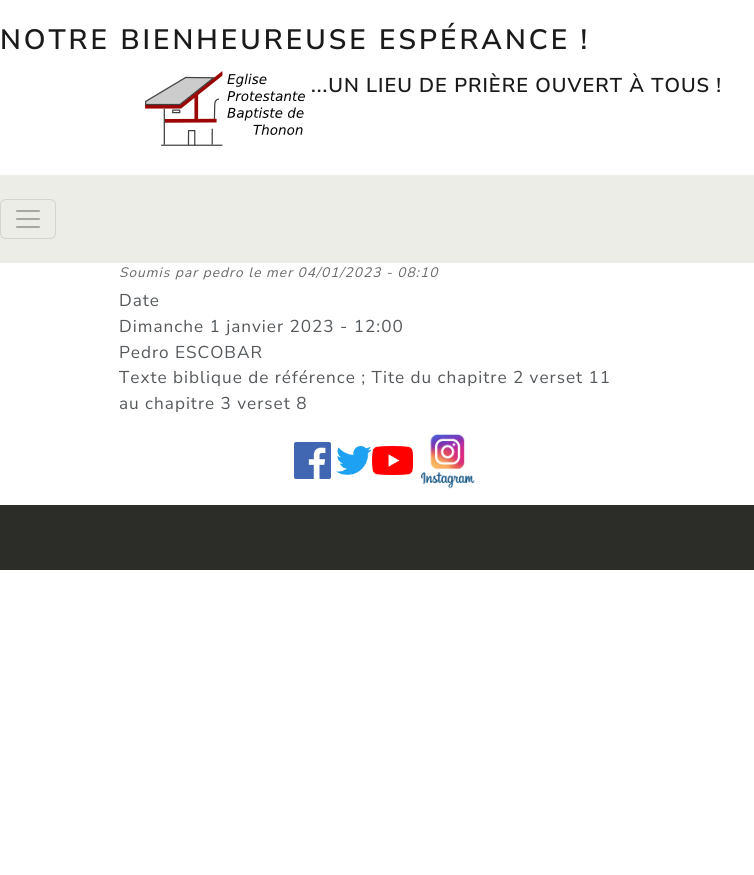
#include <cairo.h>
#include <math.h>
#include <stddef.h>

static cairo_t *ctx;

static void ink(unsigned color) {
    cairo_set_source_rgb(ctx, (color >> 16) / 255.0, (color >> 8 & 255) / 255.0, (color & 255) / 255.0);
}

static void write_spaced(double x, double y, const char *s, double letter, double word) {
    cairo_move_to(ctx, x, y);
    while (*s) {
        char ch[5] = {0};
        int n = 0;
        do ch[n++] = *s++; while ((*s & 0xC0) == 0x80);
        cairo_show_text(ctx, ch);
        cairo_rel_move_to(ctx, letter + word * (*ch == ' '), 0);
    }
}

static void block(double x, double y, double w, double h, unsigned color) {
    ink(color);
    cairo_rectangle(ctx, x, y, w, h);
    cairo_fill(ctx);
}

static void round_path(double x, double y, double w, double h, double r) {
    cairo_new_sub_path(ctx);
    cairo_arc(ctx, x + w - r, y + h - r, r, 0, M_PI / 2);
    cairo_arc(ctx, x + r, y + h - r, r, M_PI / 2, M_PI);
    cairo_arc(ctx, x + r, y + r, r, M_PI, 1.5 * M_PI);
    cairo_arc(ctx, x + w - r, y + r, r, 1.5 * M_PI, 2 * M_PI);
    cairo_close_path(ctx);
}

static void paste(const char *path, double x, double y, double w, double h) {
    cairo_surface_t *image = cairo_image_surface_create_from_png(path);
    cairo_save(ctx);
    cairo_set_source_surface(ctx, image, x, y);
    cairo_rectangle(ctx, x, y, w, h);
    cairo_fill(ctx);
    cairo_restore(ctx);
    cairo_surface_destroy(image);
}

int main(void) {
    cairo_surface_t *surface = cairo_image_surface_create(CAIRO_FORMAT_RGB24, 754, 875);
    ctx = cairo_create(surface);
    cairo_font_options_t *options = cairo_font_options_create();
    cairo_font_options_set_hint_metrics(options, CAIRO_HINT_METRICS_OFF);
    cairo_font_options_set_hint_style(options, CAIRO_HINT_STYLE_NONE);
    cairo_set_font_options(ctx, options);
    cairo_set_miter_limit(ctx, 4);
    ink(0xffffff);
    cairo_paint(ctx);
    cairo_select_font_face(ctx, "Nunito Sans SemiBold", CAIRO_FONT_SLANT_NORMAL, CAIRO_FONT_WEIGHT_NORMAL);
    cairo_set_font_size(ctx, 28);
    ink(0x1a1a1a);
    write_spaced(0, 49, "NOTRE BIENHEUREUSE ESPÉRANCE !", 3, 0);
    paste("pic1.png", 145, 71, 160, 75);
    cairo_set_font_size(ctx, 20);
    write_spaced(311, 92, "...UN LIEU DE PRIÈRE OUVERT À TOUS !", 1, 0);
    block(0, 175, 754, 88, 0xedede7);
    round_path(0.5, 199.5, 55, 39, 5.5);
    ink(0xd5d5d0);
    cairo_set_line_width(ctx, 1);
    cairo_stroke(ctx);
    paste("pic2.png", 16, 210, 24, 18);
    cairo_select_font_face(ctx, "Nunito Sans", CAIRO_FONT_SLANT_ITALIC, CAIRO_FONT_WEIGHT_NORMAL);
    cairo_set_font_size(ctx, 13.75);
    ink(0x68696b);
    write_spaced(119, 277, "Soumis par pedro le mer 04/01/2023 - 08:10", 1, 0);
    cairo_select_font_face(ctx, "Nunito Sans", CAIRO_FONT_SLANT_NORMAL, CAIRO_FONT_WEIGHT_NORMAL);
    cairo_set_font_size(ctx, 17.15);
    ink(0x55595c);
    write_spaced(119, 306, "Date", 1, 0);
    write_spaced(119, 332, "Dimanche 1 janvier 2023 - 12:00", 1, 0);
    write_spaced(119, 358, "Pedro ESCOBAR", 1, 0);
    write_spaced(119, 383, "Texte biblique de référence ; Tite du chapitre 2 verset 11", 1, 0);
    write_spaced(119, 409, "au chapitre 3 verset 8", 1, 0);
    paste("pic3.png", 294, 442, 37, 37);
    paste("pic4.png", 336, 446, 36, 29);
    paste("pic5.png", 372, 446, 41, 29);
    paste("pic6.png", 421, 434, 54, 55);
    block(0, 505, 754, 65, 0x2c2c28);
    cairo_surface_write_to_png(surface, "screenshot.png");
    cairo_font_options_destroy(options);
    cairo_destroy(ctx);
    cairo_surface_destroy(surface);
    return 0;
}
